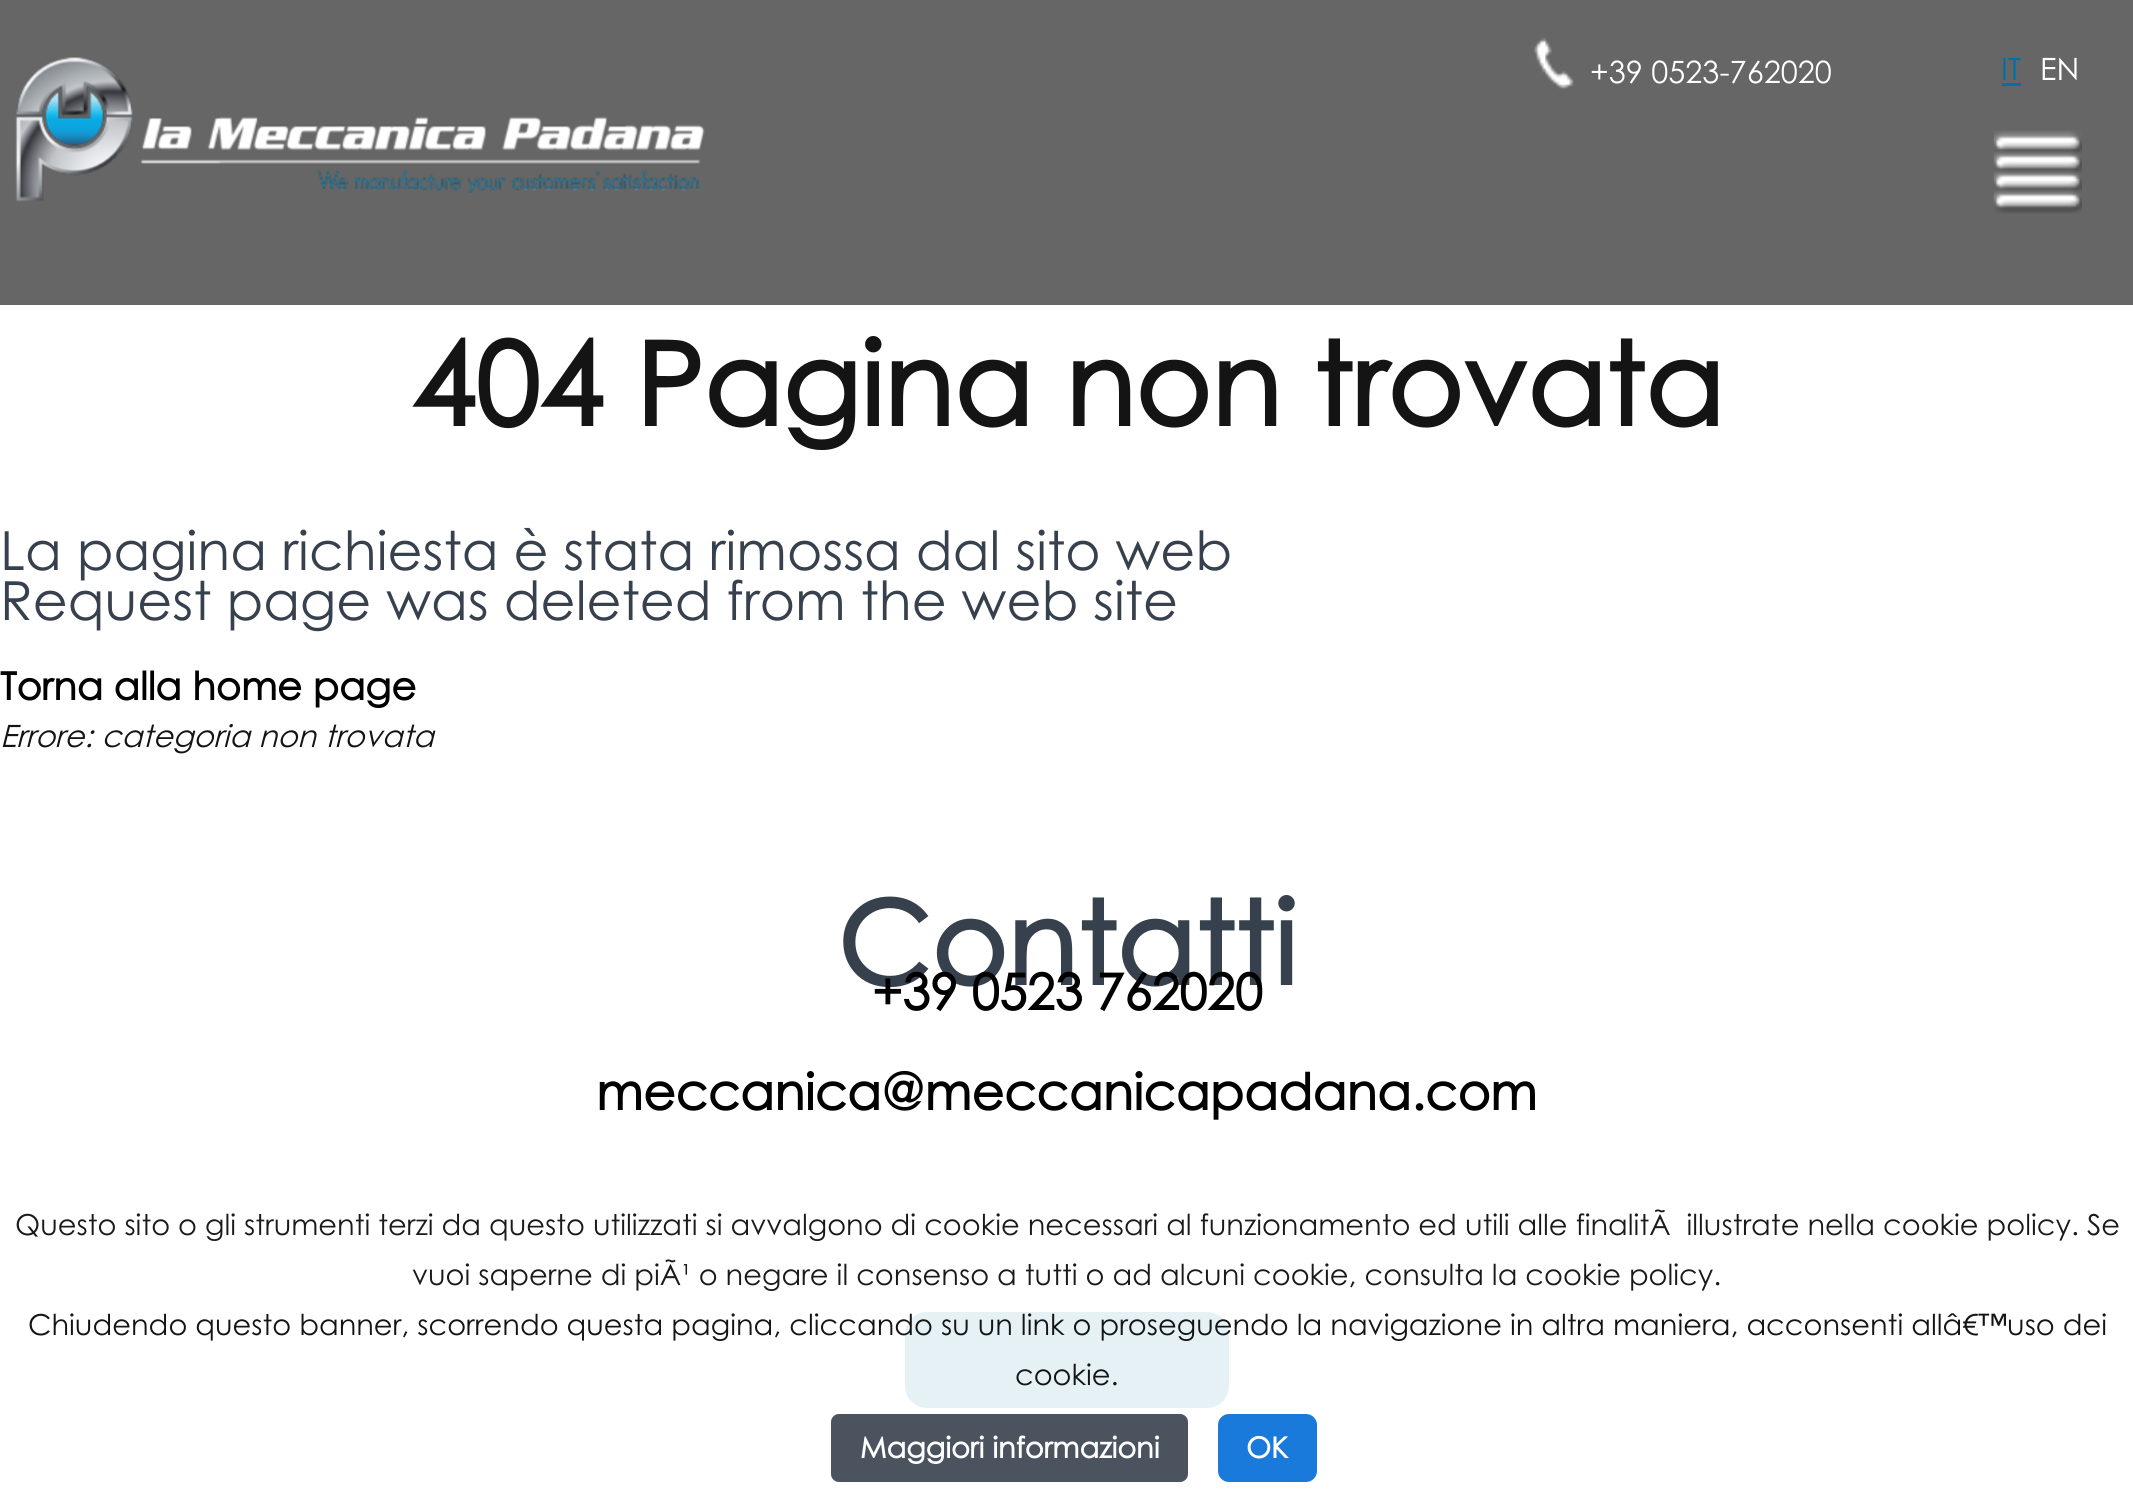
#include <cairo.h>
#include <math.h>
#include <stddef.h>

typedef struct { const char *family; double size; int italic, bold; unsigned color; } style_t;
static cairo_t *ctx;

static void ink(unsigned color) {
    cairo_set_source_rgb(ctx, (color >> 16) / 255.0, (color >> 8 & 255) / 255.0, (color & 255) / 255.0);
}

static void write(double x, double y, const char *s, const style_t *st) {
    cairo_select_font_face(ctx, st->family, st->italic ? CAIRO_FONT_SLANT_ITALIC : CAIRO_FONT_SLANT_NORMAL,
        st->bold ? CAIRO_FONT_WEIGHT_BOLD : CAIRO_FONT_WEIGHT_NORMAL);
    cairo_set_font_size(ctx, st->size);
    ink(st->color);
    cairo_move_to(ctx, x, y);
    cairo_show_text(ctx, s);
}

static void block(double x, double y, double w, double h, unsigned color) {
    ink(color);
    cairo_rectangle(ctx, x, y, w, h);
    cairo_fill(ctx);
}

static void round_path(double x, double y, double w, double h, double r) {
    cairo_new_sub_path(ctx);
    cairo_arc(ctx, x + w - r, y + h - r, r, 0, M_PI / 2);
    cairo_arc(ctx, x + r, y + h - r, r, M_PI / 2, M_PI);
    cairo_arc(ctx, x + r, y + r, r, M_PI, 1.5 * M_PI);
    cairo_arc(ctx, x + w - r, y + r, r, 1.5 * M_PI, 2 * M_PI);
    cairo_close_path(ctx);
}

static void paste(const char *path, double x, double y, double w, double h) {
    cairo_surface_t *image = cairo_image_surface_create_from_png(path);
    cairo_save(ctx);
    cairo_set_source_surface(ctx, image, x, y);
    cairo_rectangle(ctx, x, y, w, h);
    cairo_fill(ctx);
    cairo_restore(ctx);
    cairo_surface_destroy(image);
}

static const style_t s1 = {"Century Gothic", 30.75, 0, 0, 0xffffff};
static const style_t s2 = {"Century Gothic", 30.75, 0, 0, 0x0070a6};
static const style_t s3 = {"Century Gothic", 115.5, 0, 1, 0x141414};
static const style_t s4 = {"Century Gothic", 53.9, 0, 0, 0x37404d};
static const style_t s5 = {"Century Gothic", 38.5, 0, 1, 0x000000};
static const style_t s6 = {"Century Gothic", 30.75, 1, 0, 0x141414};
static const style_t s7 = {"Century Gothic", 115.5, 0, 1, 0x37404d};
static const style_t s8 = {"Century Gothic", 50, 0, 1, 0x000000};
static const style_t s9 = {"Century Gothic", 28.88, 0, 0, 0x1a1a1a};
static const style_t s10 = {"Century Gothic", 28.88, 0, 0, 0x141414};
static const style_t s11 = {"Century Gothic", 28.88, 0, 1, 0xffffff};

int main(void) {
    cairo_surface_t *surface = cairo_image_surface_create(CAIRO_FORMAT_RGB24, 2133, 1499);
    ctx = cairo_create(surface);
    cairo_font_options_t *options = cairo_font_options_create();
    cairo_font_options_set_hint_metrics(options, CAIRO_HINT_METRICS_OFF);
    cairo_font_options_set_hint_style(options, CAIRO_HINT_STYLE_NONE);
    cairo_set_font_options(ctx, options);
    cairo_set_miter_limit(ctx, 4);
    ink(0xffffff);
    cairo_paint(ctx);
    block(0, 0, 2133, 305, 0x666666);
    paste("pic1.png", 15, 57, 690, 145);
    paste("pic2.png", 1534, 38, 40, 51);
    write(1590, 83, "+39 0523-762020", &s1);
    write(2001, 80, "IT", &s2);
    block(2002, 83, 19, 3, 0x0070a6);
    write(2040, 80, "EN", &s1);
    paste("pic3.png", 1993, 130, 89, 84);
    write(411, 426, "404 Pagina non trovata", &s3);
    write(0, 570, "La pagina richiesta è stata rimossa dal sito web", &s4);
    write(0, 620, "Request page was deleted from the web site", &s4);
    write(0, 700, "Torna alla home page", &s5);
    write(0, 747, "Errore: categoria non trovata", &s6);
    write(837, 985, "Contatti", &s7);
    write(872, 1010, "+39 0523 762020", &s8);
    write(596, 1110, "meccanica@meccanicapadana.com", &s8);
    ink(0x0071a5);
    round_path(905, 1312, 324, 96, 22);
    cairo_fill(ctx);
    cairo_set_source_rgba(ctx, 1, 1, 1, 0.9);
    cairo_rectangle(ctx, 905, 1312, 324, 96);
    cairo_fill(ctx);
    write(15, 1235, "Questo sito o gli strumenti terzi da questo utilizzati si avvalgono di cookie necessari al funzionamento ed utili alle finalitÃ  illustrate nella cookie policy. Se", &s9);
    write(412, 1285, "vuoi saperne di piÃ¹ o negare il consenso a tutti o ad alcuni cookie, consulta la cookie policy.", &s9);
    write(28, 1335, "Chiudendo questo banner, scorrendo questa pagina, cliccando su un link o proseguendo la navigazione in altra maniera, acconsenti allâ€™uso dei", &s10);
    write(1015, 1385, "cookie.", &s10);
    ink(0x4b535f);
    round_path(831, 1414, 357, 68, 8);
    cairo_fill(ctx);
    write(860, 1458, "Maggiori informazioni", &s11);
    ink(0x1a7adb);
    round_path(1218, 1414, 99, 68, 11);
    cairo_fill(ctx);
    write(1246, 1458, "OK", &s11);
    cairo_surface_write_to_png(surface, "screenshot.png");
    cairo_font_options_destroy(options);
    cairo_destroy(ctx);
    cairo_surface_destroy(surface);
    return 0;
}
